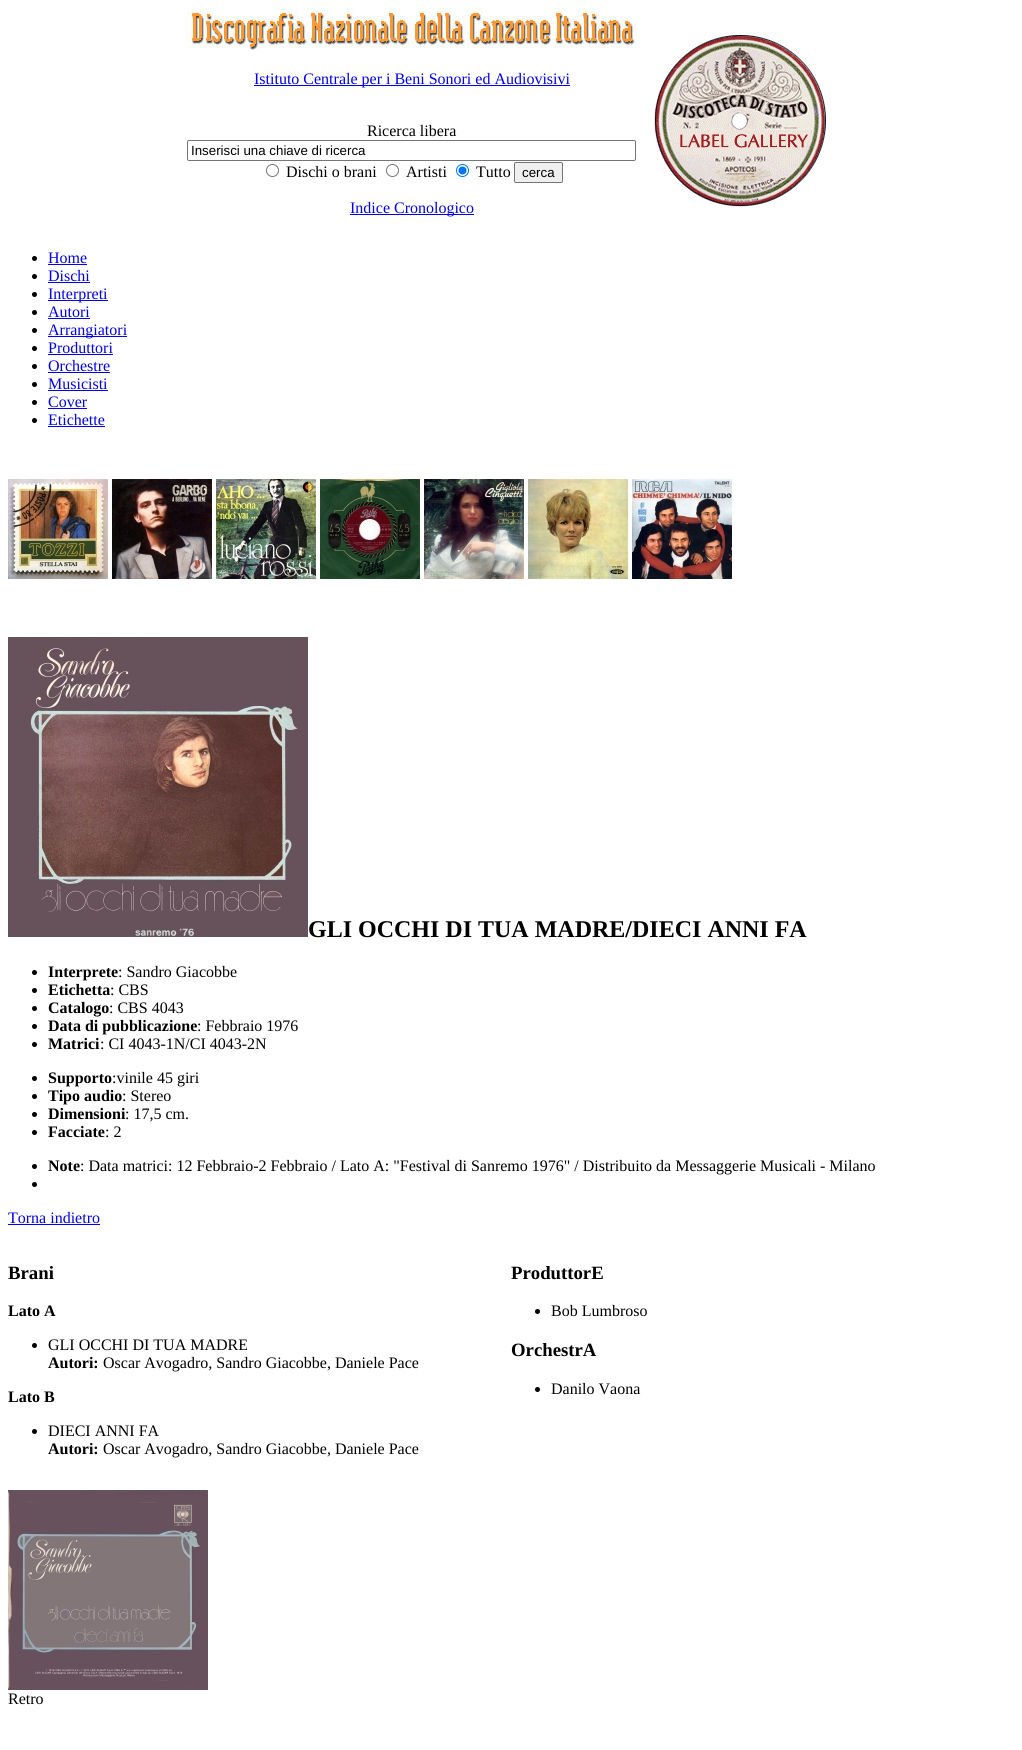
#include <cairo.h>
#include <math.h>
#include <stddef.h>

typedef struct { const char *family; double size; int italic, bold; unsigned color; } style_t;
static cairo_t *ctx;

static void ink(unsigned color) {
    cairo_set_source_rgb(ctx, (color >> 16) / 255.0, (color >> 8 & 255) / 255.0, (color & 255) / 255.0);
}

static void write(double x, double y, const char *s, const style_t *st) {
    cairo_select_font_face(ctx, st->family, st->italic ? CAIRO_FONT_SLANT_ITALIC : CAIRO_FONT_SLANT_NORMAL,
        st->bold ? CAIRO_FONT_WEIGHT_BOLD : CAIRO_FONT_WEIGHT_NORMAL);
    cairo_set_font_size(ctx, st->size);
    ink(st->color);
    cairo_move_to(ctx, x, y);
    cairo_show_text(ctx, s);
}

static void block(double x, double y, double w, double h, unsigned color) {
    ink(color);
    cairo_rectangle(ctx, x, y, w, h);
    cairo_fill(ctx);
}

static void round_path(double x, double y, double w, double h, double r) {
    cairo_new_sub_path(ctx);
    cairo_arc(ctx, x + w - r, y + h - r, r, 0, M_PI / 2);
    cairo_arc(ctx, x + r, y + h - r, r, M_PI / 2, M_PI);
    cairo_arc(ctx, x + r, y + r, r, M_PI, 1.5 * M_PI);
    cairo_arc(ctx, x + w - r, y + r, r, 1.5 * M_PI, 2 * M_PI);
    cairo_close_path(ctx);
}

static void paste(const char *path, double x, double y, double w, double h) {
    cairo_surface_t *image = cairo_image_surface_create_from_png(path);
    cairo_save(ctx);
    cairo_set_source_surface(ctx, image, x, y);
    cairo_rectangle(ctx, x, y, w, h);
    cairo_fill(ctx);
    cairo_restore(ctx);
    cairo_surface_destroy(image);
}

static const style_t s1 = {"Liberation Serif", 16, 0, 0, 0x0000ee};
static const style_t s2 = {"Liberation Serif", 16, 0, 0, 0x000000};
static const style_t s3 = {"Liberation Sans", 13.3, 0, 0, 0x000000};
static const style_t s4 = {"Liberation Serif", 24, 0, 1, 0x000000};
static const style_t s5 = {"Liberation Serif", 16, 0, 1, 0x000000};
static const style_t s6 = {"Liberation Serif", 18.75, 0, 1, 0x000000};

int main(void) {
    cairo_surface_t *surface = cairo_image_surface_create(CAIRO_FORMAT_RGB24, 1022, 1750);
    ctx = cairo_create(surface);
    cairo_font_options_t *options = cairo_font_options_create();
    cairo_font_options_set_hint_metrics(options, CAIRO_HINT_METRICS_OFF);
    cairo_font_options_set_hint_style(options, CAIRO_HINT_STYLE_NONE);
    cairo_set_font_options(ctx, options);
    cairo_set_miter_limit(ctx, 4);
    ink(0xffffff);
    cairo_paint(ctx);
    paste("pic1.png", 187, 8, 448, 42);
    block(254, 85, 316, 1, 0x0000ee);
    write(254, 84, "Istituto Centrale per i Beni Sonori ed Audiovisivi", &s1);
    write(367, 136, "Ricerca libera", &s2);
    round_path(187.5, 140.5, 448, 20, 1.5);
    ink(0x767676);
    cairo_set_line_width(ctx, 1);
    cairo_stroke(ctx);
    write(191, 155, "Inserisci una chiave di ricerca", &s3);
    cairo_new_path(ctx);
    cairo_arc(ctx, 272.5, 170.5, 6, 0, 2 * M_PI);
    ink(0x767676);
    cairo_stroke(ctx);
    write(286, 177, "Dischi o brani", &s2);
    cairo_new_path(ctx);
    cairo_arc(ctx, 392.5, 170.5, 6, 0, 2 * M_PI);
    ink(0x767676);
    cairo_stroke(ctx);
    write(406, 177, "Artisti", &s2);
    cairo_new_path(ctx);
    cairo_arc(ctx, 462.5, 170.5, 6, 0, 2 * M_PI);
    ink(0x0075ff);
    cairo_stroke(ctx);
    cairo_arc(ctx, 462.5, 170.5, 4, 0, 2 * M_PI);
    cairo_fill(ctx);
    write(476, 177, "Tutto", &s2);
    ink(0xefefef);
    round_path(514.5, 162.5, 48, 20, 1.5);
    cairo_fill_preserve(ctx);
    ink(0x767676);
    cairo_stroke(ctx);
    write(522, 177, "cerca", &s3);
    block(350, 214, 124, 1, 0x0000ee);
    write(350, 213, "Indice Cronologico", &s1);
    paste("pic2.png", 654, 35, 172, 172);
    ink(0x000000);
    cairo_arc(ctx, 34.5, 258.5, 2.5, 0, 2 * M_PI);
    cairo_fill(ctx);
    write(48, 263, "Home", &s1);
    block(48, 264, 39, 1, 0x0000ee);
    ink(0x000000);
    cairo_new_path(ctx);
    cairo_arc(ctx, 34.5, 276.5, 2.5, 0, 2 * M_PI);
    cairo_fill(ctx);
    write(48, 281, "Dischi", &s1);
    block(48, 282, 42, 1, 0x0000ee);
    ink(0x000000);
    cairo_new_path(ctx);
    cairo_arc(ctx, 34.5, 294.5, 2.5, 0, 2 * M_PI);
    cairo_fill(ctx);
    block(48, 300, 60, 1, 0x0000ee);
    write(48, 299, "Interpreti", &s1);
    ink(0x000000);
    cairo_new_path(ctx);
    cairo_arc(ctx, 34.5, 312.5, 2.5, 0, 2 * M_PI);
    cairo_fill(ctx);
    write(48, 317, "Autori", &s1);
    block(48, 318, 42, 1, 0x0000ee);
    ink(0x000000);
    cairo_new_path(ctx);
    cairo_arc(ctx, 34.5, 330.5, 2.5, 0, 2 * M_PI);
    cairo_fill(ctx);
    block(48, 336, 79, 1, 0x0000ee);
    write(48, 335, "Arrangiatori", &s1);
    ink(0x000000);
    cairo_new_path(ctx);
    cairo_arc(ctx, 34.5, 348.5, 2.5, 0, 2 * M_PI);
    cairo_fill(ctx);
    write(48, 353, "Produttori", &s1);
    block(48, 354, 65, 1, 0x0000ee);
    ink(0x000000);
    cairo_new_path(ctx);
    cairo_arc(ctx, 34.5, 366.5, 2.5, 0, 2 * M_PI);
    cairo_fill(ctx);
    write(48, 371, "Orchestre", &s1);
    block(48, 372, 62, 1, 0x0000ee);
    ink(0x000000);
    cairo_new_path(ctx);
    cairo_arc(ctx, 34.5, 384.5, 2.5, 0, 2 * M_PI);
    cairo_fill(ctx);
    write(48, 389, "Musicisti", &s1);
    block(48, 390, 60, 1, 0x0000ee);
    ink(0x000000);
    cairo_new_path(ctx);
    cairo_arc(ctx, 34.5, 402.5, 2.5, 0, 2 * M_PI);
    cairo_fill(ctx);
    write(48, 407, "Cover", &s1);
    block(48, 408, 39, 1, 0x0000ee);
    ink(0x000000);
    cairo_new_path(ctx);
    cairo_arc(ctx, 34.5, 420.5, 2.5, 0, 2 * M_PI);
    cairo_fill(ctx);
    write(48, 425, "Etichette", &s1);
    block(48, 426, 57, 1, 0x0000ee);
    paste("pic3.png", 8, 479, 100, 100);
    paste("pic4.png", 112, 479, 100, 100);
    paste("pic5.png", 216, 479, 100, 100);
    paste("pic6.png", 320, 479, 100, 100);
    paste("pic7.png", 424, 479, 100, 100);
    paste("pic8.png", 528, 479, 100, 100);
    paste("pic9.png", 632, 479, 100, 100);
    paste("pic10.png", 8, 637, 300, 300);
    write(308, 937, "GLI OCCHI DI TUA MADRE/DIECI ANNI FA", &s4);
    cairo_new_path(ctx);
    cairo_arc(ctx, 34.5, 972.5, 2.5, 0, 2 * M_PI);
    cairo_fill(ctx);
    write(48, 977, "Interprete", &s5);
    write(118, 977, ": Sandro Giacobbe", &s2);
    cairo_new_path(ctx);
    cairo_arc(ctx, 34.5, 990.5, 2.5, 0, 2 * M_PI);
    cairo_fill(ctx);
    write(48, 995, "Etichetta", &s5);
    write(110, 995, ": CBS", &s2);
    cairo_new_path(ctx);
    cairo_arc(ctx, 34.5, 1008.5, 2.5, 0, 2 * M_PI);
    cairo_fill(ctx);
    write(48, 1013, "Catalogo", &s5);
    write(109, 1013, ": CBS 4043", &s2);
    cairo_new_path(ctx);
    cairo_arc(ctx, 34.5, 1026.5, 2.5, 0, 2 * M_PI);
    cairo_fill(ctx);
    write(48, 1031, "Data di pubblicazione", &s5);
    write(197, 1031, ": Febbraio 1976", &s2);
    cairo_new_path(ctx);
    cairo_arc(ctx, 34.5, 1044.5, 2.5, 0, 2 * M_PI);
    cairo_fill(ctx);
    write(48, 1049, "Matrici", &s5);
    write(100, 1049, ": CI 4043-1N/CI 4043-2N", &s2);
    cairo_new_path(ctx);
    cairo_arc(ctx, 34.5, 1078.5, 2.5, 0, 2 * M_PI);
    cairo_fill(ctx);
    write(48, 1083, "Supporto", &s5);
    write(112, 1083, ":vinile 45 giri", &s2);
    cairo_new_path(ctx);
    cairo_arc(ctx, 34.5, 1096.5, 2.5, 0, 2 * M_PI);
    cairo_fill(ctx);
    write(48, 1101, "Tipo audio", &s5);
    write(122, 1101, ": Stereo", &s2);
    cairo_new_path(ctx);
    cairo_arc(ctx, 34.5, 1114.5, 2.5, 0, 2 * M_PI);
    cairo_fill(ctx);
    write(48, 1119, "Dimensioni", &s5);
    write(125, 1119, ": 17,5 cm.", &s2);
    cairo_new_path(ctx);
    cairo_arc(ctx, 34.5, 1132.5, 2.5, 0, 2 * M_PI);
    cairo_fill(ctx);
    write(48, 1137, "Facciate", &s5);
    write(105, 1137, ": 2", &s2);
    cairo_new_path(ctx);
    cairo_arc(ctx, 34.5, 1166.5, 2.5, 0, 2 * M_PI);
    cairo_fill(ctx);
    write(48, 1171, "Note", &s5);
    write(80, 1171, ": Data matrici: 12 Febbraio-2 Febbraio / Lato A: \"Festival di Sanremo 1976\" / Distribuito da Messaggerie Musicali - Milano", &s2);
    cairo_new_path(ctx);
    cairo_arc(ctx, 34.5, 1184.5, 2.5, 0, 2 * M_PI);
    cairo_fill(ctx);
    write(8, 1223, "Torna indietro", &s1);
    block(8, 1224, 92, 1, 0x0000ee);
    write(8, 1279, "Brani", &s6);
    write(8, 1316, "Lato A", &s5);
    cairo_new_path(ctx);
    cairo_arc(ctx, 34.5, 1345.5, 2.5, 0, 2 * M_PI);
    cairo_fill(ctx);
    write(48, 1350, "GLI OCCHI DI TUA MADRE", &s2);
    write(48, 1368, "Autori:", &s5);
    write(103, 1368, "Oscar Avogadro, Sandro Giacobbe, Daniele Pace", &s2);
    write(8, 1402, "Lato B", &s5);
    cairo_new_path(ctx);
    cairo_arc(ctx, 34.5, 1431.5, 2.5, 0, 2 * M_PI);
    cairo_fill(ctx);
    write(48, 1436, "DIECI ANNI FA", &s2);
    write(48, 1454, "Autori:", &s5);
    write(103, 1454, "Oscar Avogadro, Sandro Giacobbe, Daniele Pace", &s2);
    write(511, 1279, "ProduttorE", &s6);
    cairo_new_path(ctx);
    cairo_arc(ctx, 537.5, 1311.5, 2.5, 0, 2 * M_PI);
    cairo_fill(ctx);
    write(551, 1316, "Bob Lumbroso", &s2);
    write(511, 1356, "OrchestrA", &s6);
    cairo_new_path(ctx);
    cairo_arc(ctx, 537.5, 1389.5, 2.5, 0, 2 * M_PI);
    cairo_fill(ctx);
    write(551, 1394, "Danilo Vaona", &s2);
    paste("pic11.png", 8, 1490, 200, 200);
    write(8, 1704, "Retro", &s2);
    cairo_surface_write_to_png(surface, "screenshot.png");
    cairo_font_options_destroy(options);
    cairo_destroy(ctx);
    cairo_surface_destroy(surface);
    return 0;
}
